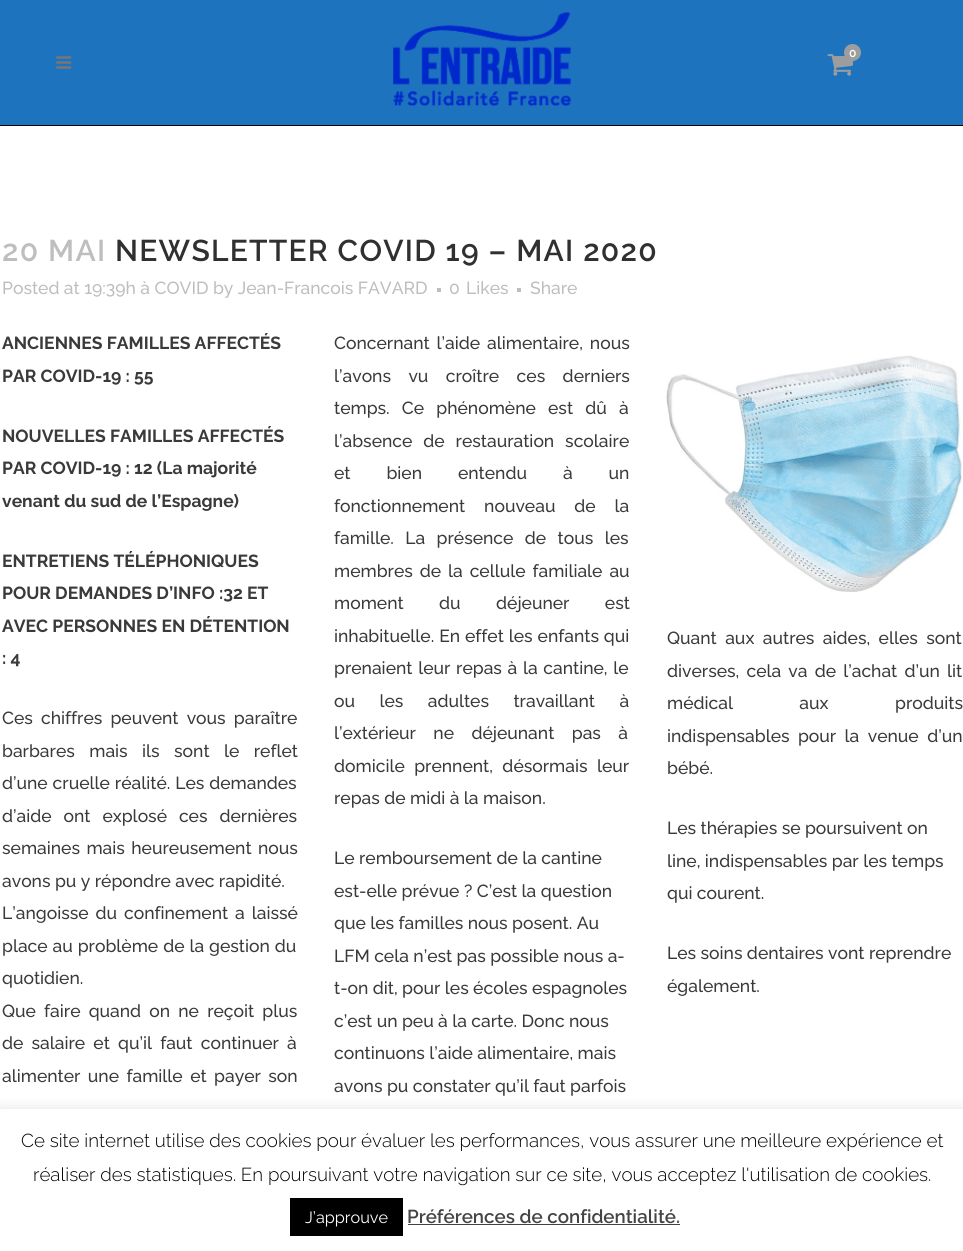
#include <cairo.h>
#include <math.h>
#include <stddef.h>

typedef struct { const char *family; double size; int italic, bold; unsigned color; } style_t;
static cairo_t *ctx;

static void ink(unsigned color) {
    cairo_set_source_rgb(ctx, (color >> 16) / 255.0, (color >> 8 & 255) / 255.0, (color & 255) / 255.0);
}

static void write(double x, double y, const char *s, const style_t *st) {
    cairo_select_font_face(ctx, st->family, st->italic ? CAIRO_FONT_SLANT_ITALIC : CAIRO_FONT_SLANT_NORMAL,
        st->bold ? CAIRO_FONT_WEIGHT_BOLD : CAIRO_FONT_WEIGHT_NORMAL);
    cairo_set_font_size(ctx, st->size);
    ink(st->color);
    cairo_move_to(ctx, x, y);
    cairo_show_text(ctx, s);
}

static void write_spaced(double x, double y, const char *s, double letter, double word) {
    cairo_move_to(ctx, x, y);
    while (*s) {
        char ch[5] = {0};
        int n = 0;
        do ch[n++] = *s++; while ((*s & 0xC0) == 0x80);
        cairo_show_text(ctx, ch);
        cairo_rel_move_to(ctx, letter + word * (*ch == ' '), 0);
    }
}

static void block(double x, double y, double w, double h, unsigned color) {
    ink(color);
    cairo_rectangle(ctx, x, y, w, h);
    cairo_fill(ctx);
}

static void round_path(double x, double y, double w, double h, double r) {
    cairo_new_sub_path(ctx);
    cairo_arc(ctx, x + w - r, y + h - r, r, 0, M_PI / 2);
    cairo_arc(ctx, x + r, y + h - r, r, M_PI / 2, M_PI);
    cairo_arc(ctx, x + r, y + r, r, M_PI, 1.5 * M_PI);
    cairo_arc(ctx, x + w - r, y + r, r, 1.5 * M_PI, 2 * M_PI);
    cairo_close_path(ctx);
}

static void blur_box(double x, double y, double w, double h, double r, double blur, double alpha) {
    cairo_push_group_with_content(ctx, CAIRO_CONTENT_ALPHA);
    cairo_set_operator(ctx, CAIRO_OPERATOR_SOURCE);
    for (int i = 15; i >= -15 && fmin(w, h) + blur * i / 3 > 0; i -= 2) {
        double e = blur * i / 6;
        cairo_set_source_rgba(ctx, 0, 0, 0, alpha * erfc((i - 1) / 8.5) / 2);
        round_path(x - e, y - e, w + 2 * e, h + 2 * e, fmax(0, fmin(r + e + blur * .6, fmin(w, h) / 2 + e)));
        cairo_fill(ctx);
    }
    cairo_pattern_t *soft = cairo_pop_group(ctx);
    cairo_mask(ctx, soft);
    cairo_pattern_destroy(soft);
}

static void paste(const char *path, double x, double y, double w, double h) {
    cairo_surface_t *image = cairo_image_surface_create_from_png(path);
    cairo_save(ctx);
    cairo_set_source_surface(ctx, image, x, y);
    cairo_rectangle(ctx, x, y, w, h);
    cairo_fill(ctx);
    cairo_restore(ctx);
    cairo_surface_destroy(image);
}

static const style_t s1 = {"Raleway SemiBold", 12, 0, 0, 0xffffff};
static const style_t s2 = {"Raleway Medium", 17.5, 0, 0, 0xbebebe};
static const style_t s3 = {"Raleway", 17.5, 0, 1, 0x3a3a3a};
static const style_t s4 = {"Raleway Medium", 17.5, 0, 0, 0x3a3a3a};
static const style_t s5 = {"Raleway Light", 18.75, 0, 0, 0x000000};
static const style_t s6 = {"Raleway", 16.25, 0, 0, 0xffffff};
static const style_t s7 = {"Raleway SemiBold", 18.75, 0, 0, 0x444444};

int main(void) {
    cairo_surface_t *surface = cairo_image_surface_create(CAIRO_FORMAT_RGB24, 963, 1251);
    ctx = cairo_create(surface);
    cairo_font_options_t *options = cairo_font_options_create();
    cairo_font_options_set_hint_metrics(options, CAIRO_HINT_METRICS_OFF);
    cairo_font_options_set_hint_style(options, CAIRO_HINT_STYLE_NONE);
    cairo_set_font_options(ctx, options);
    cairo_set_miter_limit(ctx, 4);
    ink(0xffffff);
    cairo_paint(ctx);
    block(0, 0, 963, 125, 0x1e73be);
    block(0, 125, 963, 1, 0x000000);
    paste("pic1.png", 56, 56, 16, 13);
    paste("pic2.png", 393, 12, 179, 95);
    paste("pic3.png", 827, 54, 27, 22);
    ink(0x9d9d9d);
    cairo_arc(ctx, 852.5, 52.5, 8.5, 0, 2 * M_PI);
    cairo_fill(ctx);
    write(849, 57, "0", &s1);
    cairo_set_font_size(ctx, 30);
    ink(0xbebebe);
    write_spaced(2, 261, "20 MAI", 1.25, 0);
    ink(0x303030);
    write_spaced(115, 261, "NEWSLETTER COVID 19 – MAI 2020", 1.25, 0);
    write(2, 294, "Posted at 19:39h à COVID by Jean-Francois FAVARD", &s2);
    block(437, 288, 4, 4, 0xbebebe);
    write(449, 294, "0", &s2);
    write(466, 294, "Likes", &s2);
    block(517, 288, 4, 4, 0xbebebe);
    write(530, 294, "Share", &s2);
    write(2, 349, "ANCIENNES FAMILLES AFFECTÉS", &s3);
    write(2, 382, "PAR COVID-19 : 55", &s3);
    write(2, 442, "NOUVELLES FAMILLES AFFECTÉS", &s3);
    write(2, 474, "PAR COVID-19 : 12 (La majorité", &s3);
    write(2, 507, "venant du sud de l’Espagne)", &s3);
    write(2, 567, "ENTRETIENS TÉLÉPHONIQUES", &s3);
    write(2, 599, "POUR DEMANDES D’INFO :32 ET", &s3);
    write(2, 632, "AVEC PERSONNES EN DÉTENTION", &s3);
    write(2, 664, ": 4", &s3);
    cairo_select_font_face(ctx, "Raleway Medium", CAIRO_FONT_SLANT_NORMAL, CAIRO_FONT_WEIGHT_NORMAL);
    write_spaced(2, 724, "Ces chiffres peuvent vous paraître", 0, 3.75);
    write_spaced(2, 757, "barbares mais ils sont le reflet", 0, 10);
    write_spaced(2, 789, "d’une cruelle réalité. Les demandes", 0, 0.5);
    write_spaced(2, 822, "d’aide ont explosé ces dernières", 0, 7.5);
    write_spaced(2, 854, "semaines mais heureusement nous", 0, 2);
    write(2, 887, "avons pu y répondre avec rapidité.", &s4);
    write_spaced(2, 919, "L’angoisse du confinement a laissé", 0, 2.5);
    write_spaced(2, 952, "place au problème de la gestion du", 0, 0.5);
    write(2, 984, "quotidien.", &s4);
    write_spaced(2, 1017, "Que faire quand on ne reçoit plus", 0, 3.75);
    write_spaced(2, 1049, "de salaire et qu’il faut continuer à", 0, 3.75);
    write_spaced(2, 1082, "alimenter une famille et payer son", 0, 3);
    write_spaced(334, 349, "Concernant l’aide alimentaire, nous", 0, 2.5);
    write_spaced(334, 382, "l’avons vu croître ces derniers", 0, 13);
    write_spaced(334, 414, "temps. Ce phénomène est dû à", 0, 7.75);
    write_spaced(334, 447, "l’absence de restauration scolaire", 0, 6.5);
    write_spaced(334, 479, "et bien entendu à un", 0, 31.5);
    write_spaced(334, 512, "fonctionnement nouveau de la", 0, 14.5);
    write_spaced(334, 544, "famille. La présence de tous les", 0, 7);
    write_spaced(334, 577, "membres de la cellule familiale au", 0, 2.5);
    write_spaced(334, 609, "moment du déjeuner est", 0, 31);
    write_spaced(334, 642, "inhabituelle. En effet les enfants qui", 0, 0.5);
    write_spaced(334, 674, "prenaient leur repas à la cantine, le", 0, 1.25);
    write_spaced(334, 707, "ou les adultes travaillant à", 0, 20);
    write_spaced(334, 739, "l’extérieur ne déjeunant pas à", 0, 13);
    write_spaced(334, 772, "domicile prennent, désormais leur", 0, 5);
    write(334, 804, "repas de midi à la maison.", &s4);
    write(334, 864, "Le remboursement de la cantine", &s4);
    write(334, 897, "est-elle prévue ? C’est la question", &s4);
    write(334, 929, "que les familles nous posent. Au", &s4);
    write(334, 962, "LFM cela n’est pas possible nous a-", &s4);
    write(334, 994, "t-on dit, pour les écoles espagnoles", &s4);
    write(334, 1027, "c’est un peu à la carte. Donc nous", &s4);
    write(334, 1059, "continuons l’aide alimentaire, mais", &s4);
    write(334, 1092, "avons pu constater qu’il faut parfois", &s4);
    paste("pic4.png", 666, 355, 296, 237);
    write_spaced(667, 644, "Quant aux autres aides, elles sont", 0, 4);
    write_spaced(667, 677, "diverses, cela va de l’achat d’un lit", 0, 2.75);
    write_spaced(667, 709, "médical aux produits", 0, 62);
    write_spaced(667, 742, "indispensables pour la venue d’un", 0, 4);
    write(667, 774, "bébé.", &s4);
    write(667, 834, "Les thérapies se poursuivent on", &s4);
    write(667, 867, "line, indispensables par les temps", &s4);
    write(667, 899, "qui courent.", &s4);
    write(667, 959, "Les soins dentaires vont reprendre", &s4);
    write(667, 992, "également.", &s4);
    ink(0xacabab);
    blur_box(0, 1108, 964, 142, 0, 6, 0.3);
    block(0, 1109, 963, 142, 0xffffff);
    write(21, 1147, "Ce site internet utilise des cookies pour évaluer les performances, vous assurer une meilleure expérience et", &s5);
    write(33, 1181, "réaliser des statistiques. En poursuivant votre navigation sur ce site, vous acceptez l'utilisation de cookies.", &s5);
    block(290, 1198, 113, 38, 0x000000);
    write(305, 1223, "J’approuve", &s6);
    write(407, 1223, "Préférences de confidentialité.", &s7);
    block(408, 1224, 272, 1, 0x444444);
    cairo_surface_write_to_png(surface, "screenshot.png");
    cairo_font_options_destroy(options);
    cairo_destroy(ctx);
    cairo_surface_destroy(surface);
    return 0;
}
